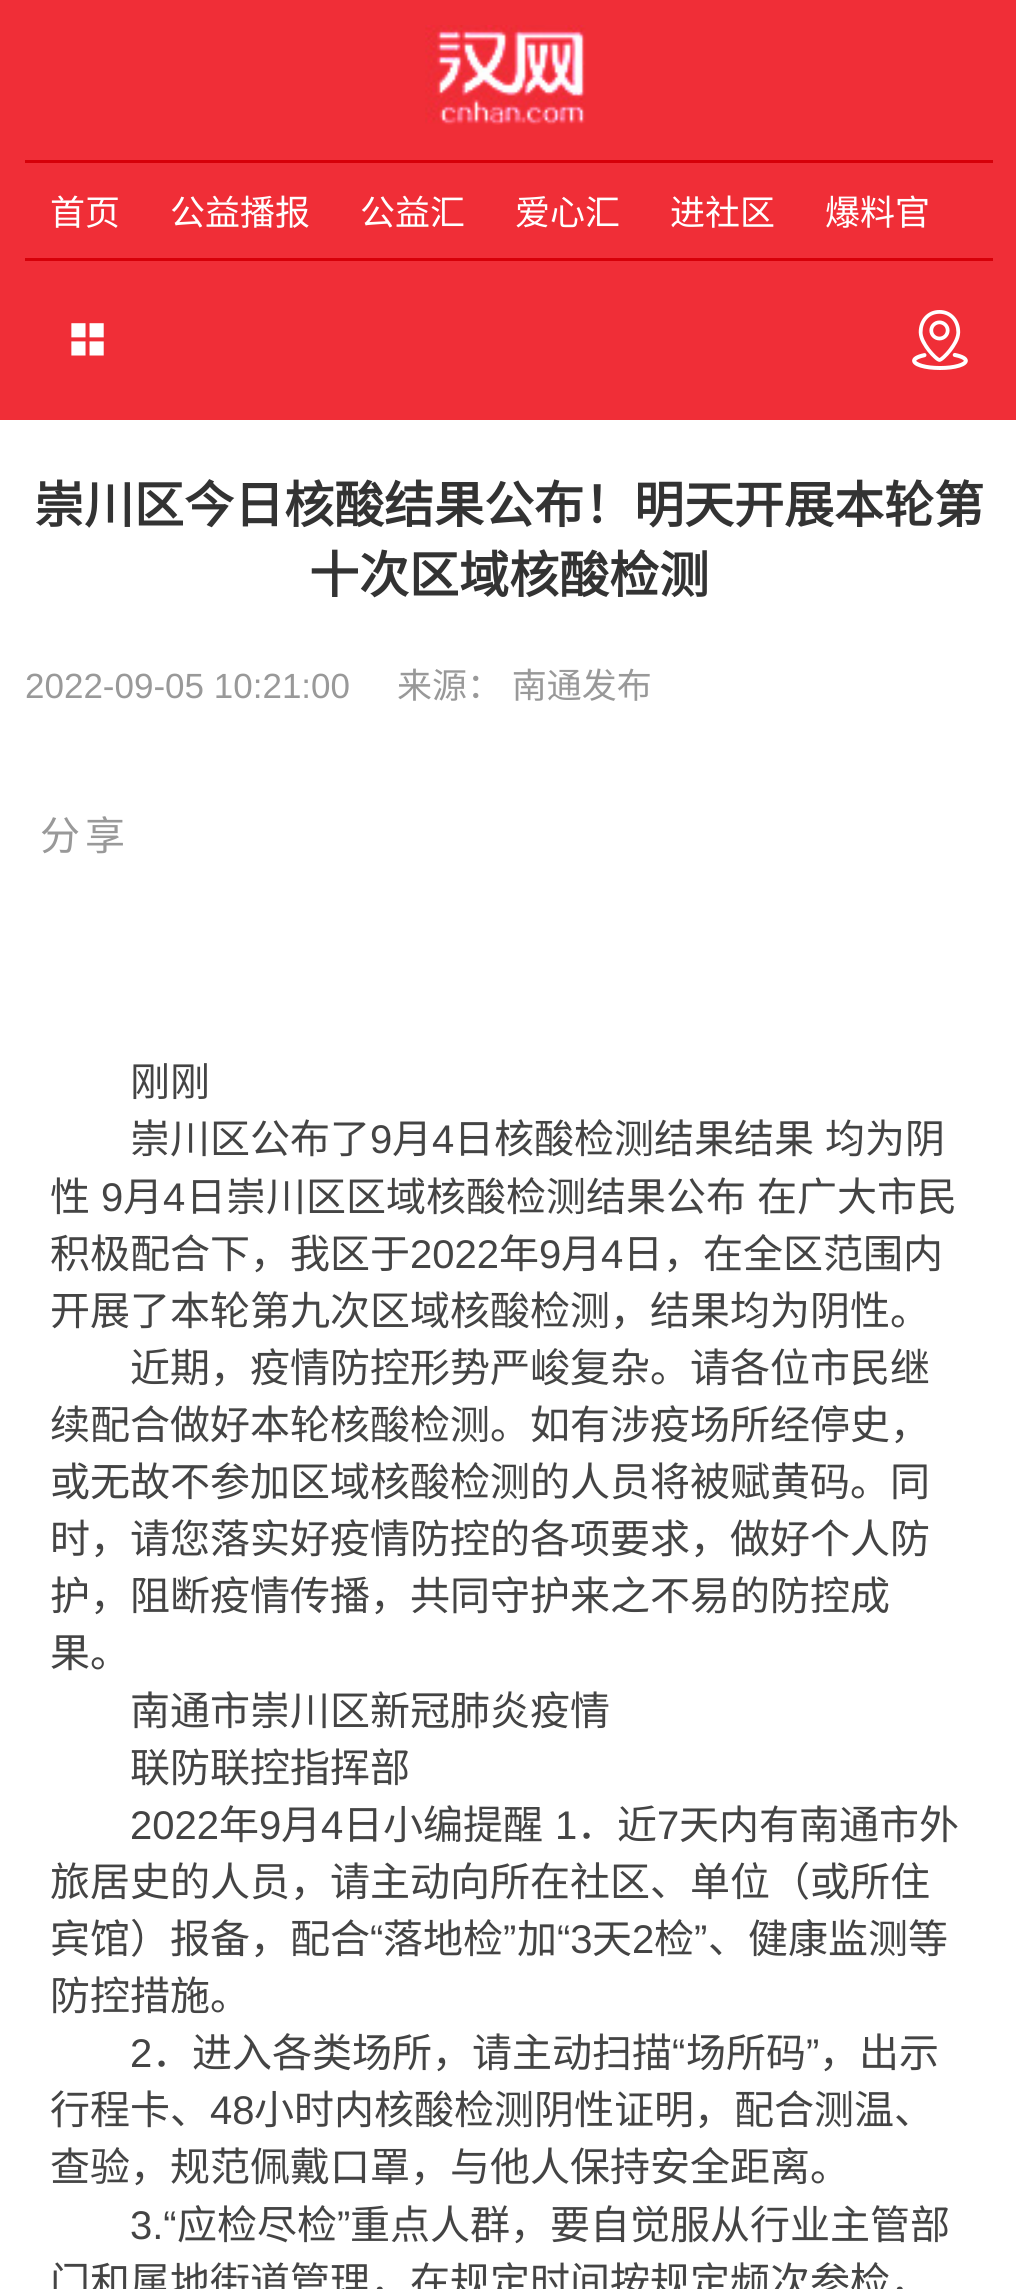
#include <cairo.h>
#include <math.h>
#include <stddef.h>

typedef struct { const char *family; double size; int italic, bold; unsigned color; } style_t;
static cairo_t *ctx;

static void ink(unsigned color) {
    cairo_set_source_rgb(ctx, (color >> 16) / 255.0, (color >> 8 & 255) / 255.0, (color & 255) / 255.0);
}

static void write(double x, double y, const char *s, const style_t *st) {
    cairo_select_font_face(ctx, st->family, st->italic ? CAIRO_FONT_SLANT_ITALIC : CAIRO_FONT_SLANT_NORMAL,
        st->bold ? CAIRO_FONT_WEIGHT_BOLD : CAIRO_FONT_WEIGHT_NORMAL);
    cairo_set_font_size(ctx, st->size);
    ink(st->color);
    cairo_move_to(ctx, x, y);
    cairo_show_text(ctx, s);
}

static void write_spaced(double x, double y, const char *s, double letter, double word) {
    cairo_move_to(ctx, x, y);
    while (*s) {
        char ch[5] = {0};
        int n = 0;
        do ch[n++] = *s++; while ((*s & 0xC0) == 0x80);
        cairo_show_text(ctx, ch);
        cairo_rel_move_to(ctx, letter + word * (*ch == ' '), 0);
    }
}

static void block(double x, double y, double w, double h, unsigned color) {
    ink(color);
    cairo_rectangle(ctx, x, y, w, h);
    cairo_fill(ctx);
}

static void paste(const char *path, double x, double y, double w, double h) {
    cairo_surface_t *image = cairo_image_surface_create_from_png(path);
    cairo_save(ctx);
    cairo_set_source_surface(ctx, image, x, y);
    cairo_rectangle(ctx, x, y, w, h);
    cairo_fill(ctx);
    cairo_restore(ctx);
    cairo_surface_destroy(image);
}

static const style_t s1 = {"Noto Sans CJK SC", 35, 0, 0, 0xffffff};
static const style_t s2 = {"Noto Sans CJK SC", 50, 0, 1, 0x333333};
static const style_t s3 = {"Liberation Sans", 35, 0, 0, 0x999999};
static const style_t s4 = {"Noto Sans CJK SC", 40, 0, 0, 0x444444};
static const style_t s5 = {"Liberation Sans", 40, 0, 0, 0x444444};

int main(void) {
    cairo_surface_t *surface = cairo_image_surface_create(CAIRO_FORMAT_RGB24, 1016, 2289);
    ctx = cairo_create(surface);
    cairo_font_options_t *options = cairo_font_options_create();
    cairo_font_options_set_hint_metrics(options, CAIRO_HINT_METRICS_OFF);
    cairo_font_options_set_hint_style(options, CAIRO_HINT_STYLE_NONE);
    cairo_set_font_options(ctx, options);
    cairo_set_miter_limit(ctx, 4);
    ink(0xffffff);
    cairo_paint(ctx);
    block(0, 0, 1016, 420, 0xf02e37);
    paste("pic1.png", 425, 25, 161, 100);
    block(25, 160, 968, 3, 0xd60009);
    block(25, 258, 968, 3, 0xd60009);
    write(50, 225, "首页", &s1);
    write(170, 225, "公益播报", &s1);
    write(360, 225, "公益汇", &s1);
    write(515, 225, "爱心汇", &s1);
    write(670, 225, "进社区", &s1);
    write(825, 225, "爆料官", &s1);
    paste("pic2.png", 71, 323, 33, 33);
    paste("pic3.png", 912, 310, 56, 60);
    write(34, 523, "崇川区今日核酸结果公布！明天开展本轮第", &s2);
    write(309, 593, "十次区域核酸检测", &s2);
    write(25, 698, "2022-09-05 10:21:00", &s3);
    cairo_select_font_face(ctx, "Noto Sans CJK SC", CAIRO_FONT_SLANT_NORMAL, CAIRO_FONT_WEIGHT_NORMAL);
    write_spaced(397, 698, "来源： 南通发布", 0, 2);
    cairo_set_font_size(ctx, 40);
    write_spaced(40, 850, "分享", 5, 0);
    write(130, 1096, "刚刚", &s4);
    write(130, 1153, "崇川区公布了", &s4);
    write(370, 1153, "9", &s5);
    write(392, 1153, "月", &s4);
    write(432, 1153, "4", &s5);
    cairo_select_font_face(ctx, "Noto Sans CJK SC", CAIRO_FONT_SLANT_NORMAL, CAIRO_FONT_WEIGHT_NORMAL);
    write_spaced(454, 1153, "日核酸检测结果结果 均为阴", 0, 2);
    write(50, 1211, "性", &s4);
    write(101, 1211, "9", &s5);
    write(123, 1211, "月", &s4);
    write(163, 1211, "4", &s5);
    cairo_select_font_face(ctx, "Noto Sans CJK SC", CAIRO_FONT_SLANT_NORMAL, CAIRO_FONT_WEIGHT_NORMAL);
    write_spaced(186, 1211, "日崇川区区域核酸检测结果公布 在广大市民", 0, 2);
    write(50, 1268, "积极配合下，我区于", &s4);
    write(410, 1268, "2022", &s5);
    write(499, 1268, "年", &s4);
    write(539, 1268, "9", &s5);
    write(561, 1268, "月", &s4);
    write(601, 1268, "4", &s5);
    write(623, 1268, "日，在全区范围内", &s4);
    write(50, 1325, "开展了本轮第九次区域核酸检测，结果均为阴性。", &s4);
    write(130, 1382, "近期，疫情防控形势严峻复杂。请各位市民继", &s4);
    write(50, 1439, "续配合做好本轮核酸检测。如有涉疫场所经停史，", &s4);
    write(50, 1496, "或无故不参加区域核酸检测的人员将被赋黄码。同", &s4);
    write(50, 1553, "时，请您落实好疫情防控的各项要求，做好个人防", &s4);
    write(50, 1610, "护，阻断疫情传播，共同守护来之不易的防控成", &s4);
    write(50, 1667, "果。", &s4);
    write(130, 1725, "南通市崇川区新冠肺炎疫情", &s4);
    write(130, 1782, "联防联控指挥部", &s4);
    write(130, 1839, "2022", &s5);
    write(219, 1839, "年", &s4);
    write(259, 1839, "9", &s5);
    write(281, 1839, "月", &s4);
    write(321, 1839, "4", &s5);
    write(343, 1839, "日小编提醒", &s4);
    write(555, 1839, "1", &s5);
    write(577, 1839, "．近", &s4);
    write(657, 1839, "7", &s5);
    write(679, 1839, "天内有南通市外", &s4);
    write(50, 1896, "旅居史的人员，请主动向所在社区、单位（或所住", &s4);
    write(50, 1953, "宾馆）报备，配合", &s4);
    write(370, 1953, "“", &s5);
    write(383, 1953, "落地检", &s4);
    write(503, 1953, "”", &s5);
    write(517, 1953, "加", &s4);
    write(557, 1953, "“3", &s5);
    write(592, 1953, "天", &s4);
    write(632, 1953, "2", &s5);
    write(654, 1953, "检", &s4);
    write(694, 1953, "”", &s5);
    write(708, 1953, "、健康监测等", &s4);
    write(50, 2010, "防控措施。", &s4);
    write(130, 2067, "2", &s5);
    write(152, 2067, "．进入各类场所，请主动扫描", &s4);
    write(672, 2067, "“", &s5);
    write(686, 2067, "场所码", &s4);
    write(806, 2067, "”", &s5);
    write(819, 2067, "，出示", &s4);
    write(50, 2124, "行程卡、", &s4);
    write(210, 2124, "48", &s5);
    write(254, 2124, "小时内核酸检测阴性证明，配合测温、", &s4);
    write(50, 2181, "查验，规范佩戴口罩，与他人保持安全距离。", &s4);
    write(130, 2239, "3.“", &s5);
    write(177, 2239, "应检尽检", &s4);
    write(337, 2239, "”", &s5);
    write(350, 2239, "重点人群，要自觉服从行业主管部", &s4);
    write(50, 2296, "门和属地街道管理，在规定时间按规定频次参检，", &s4);
    cairo_surface_write_to_png(surface, "screenshot.png");
    cairo_font_options_destroy(options);
    cairo_destroy(ctx);
    cairo_surface_destroy(surface);
    return 0;
}
